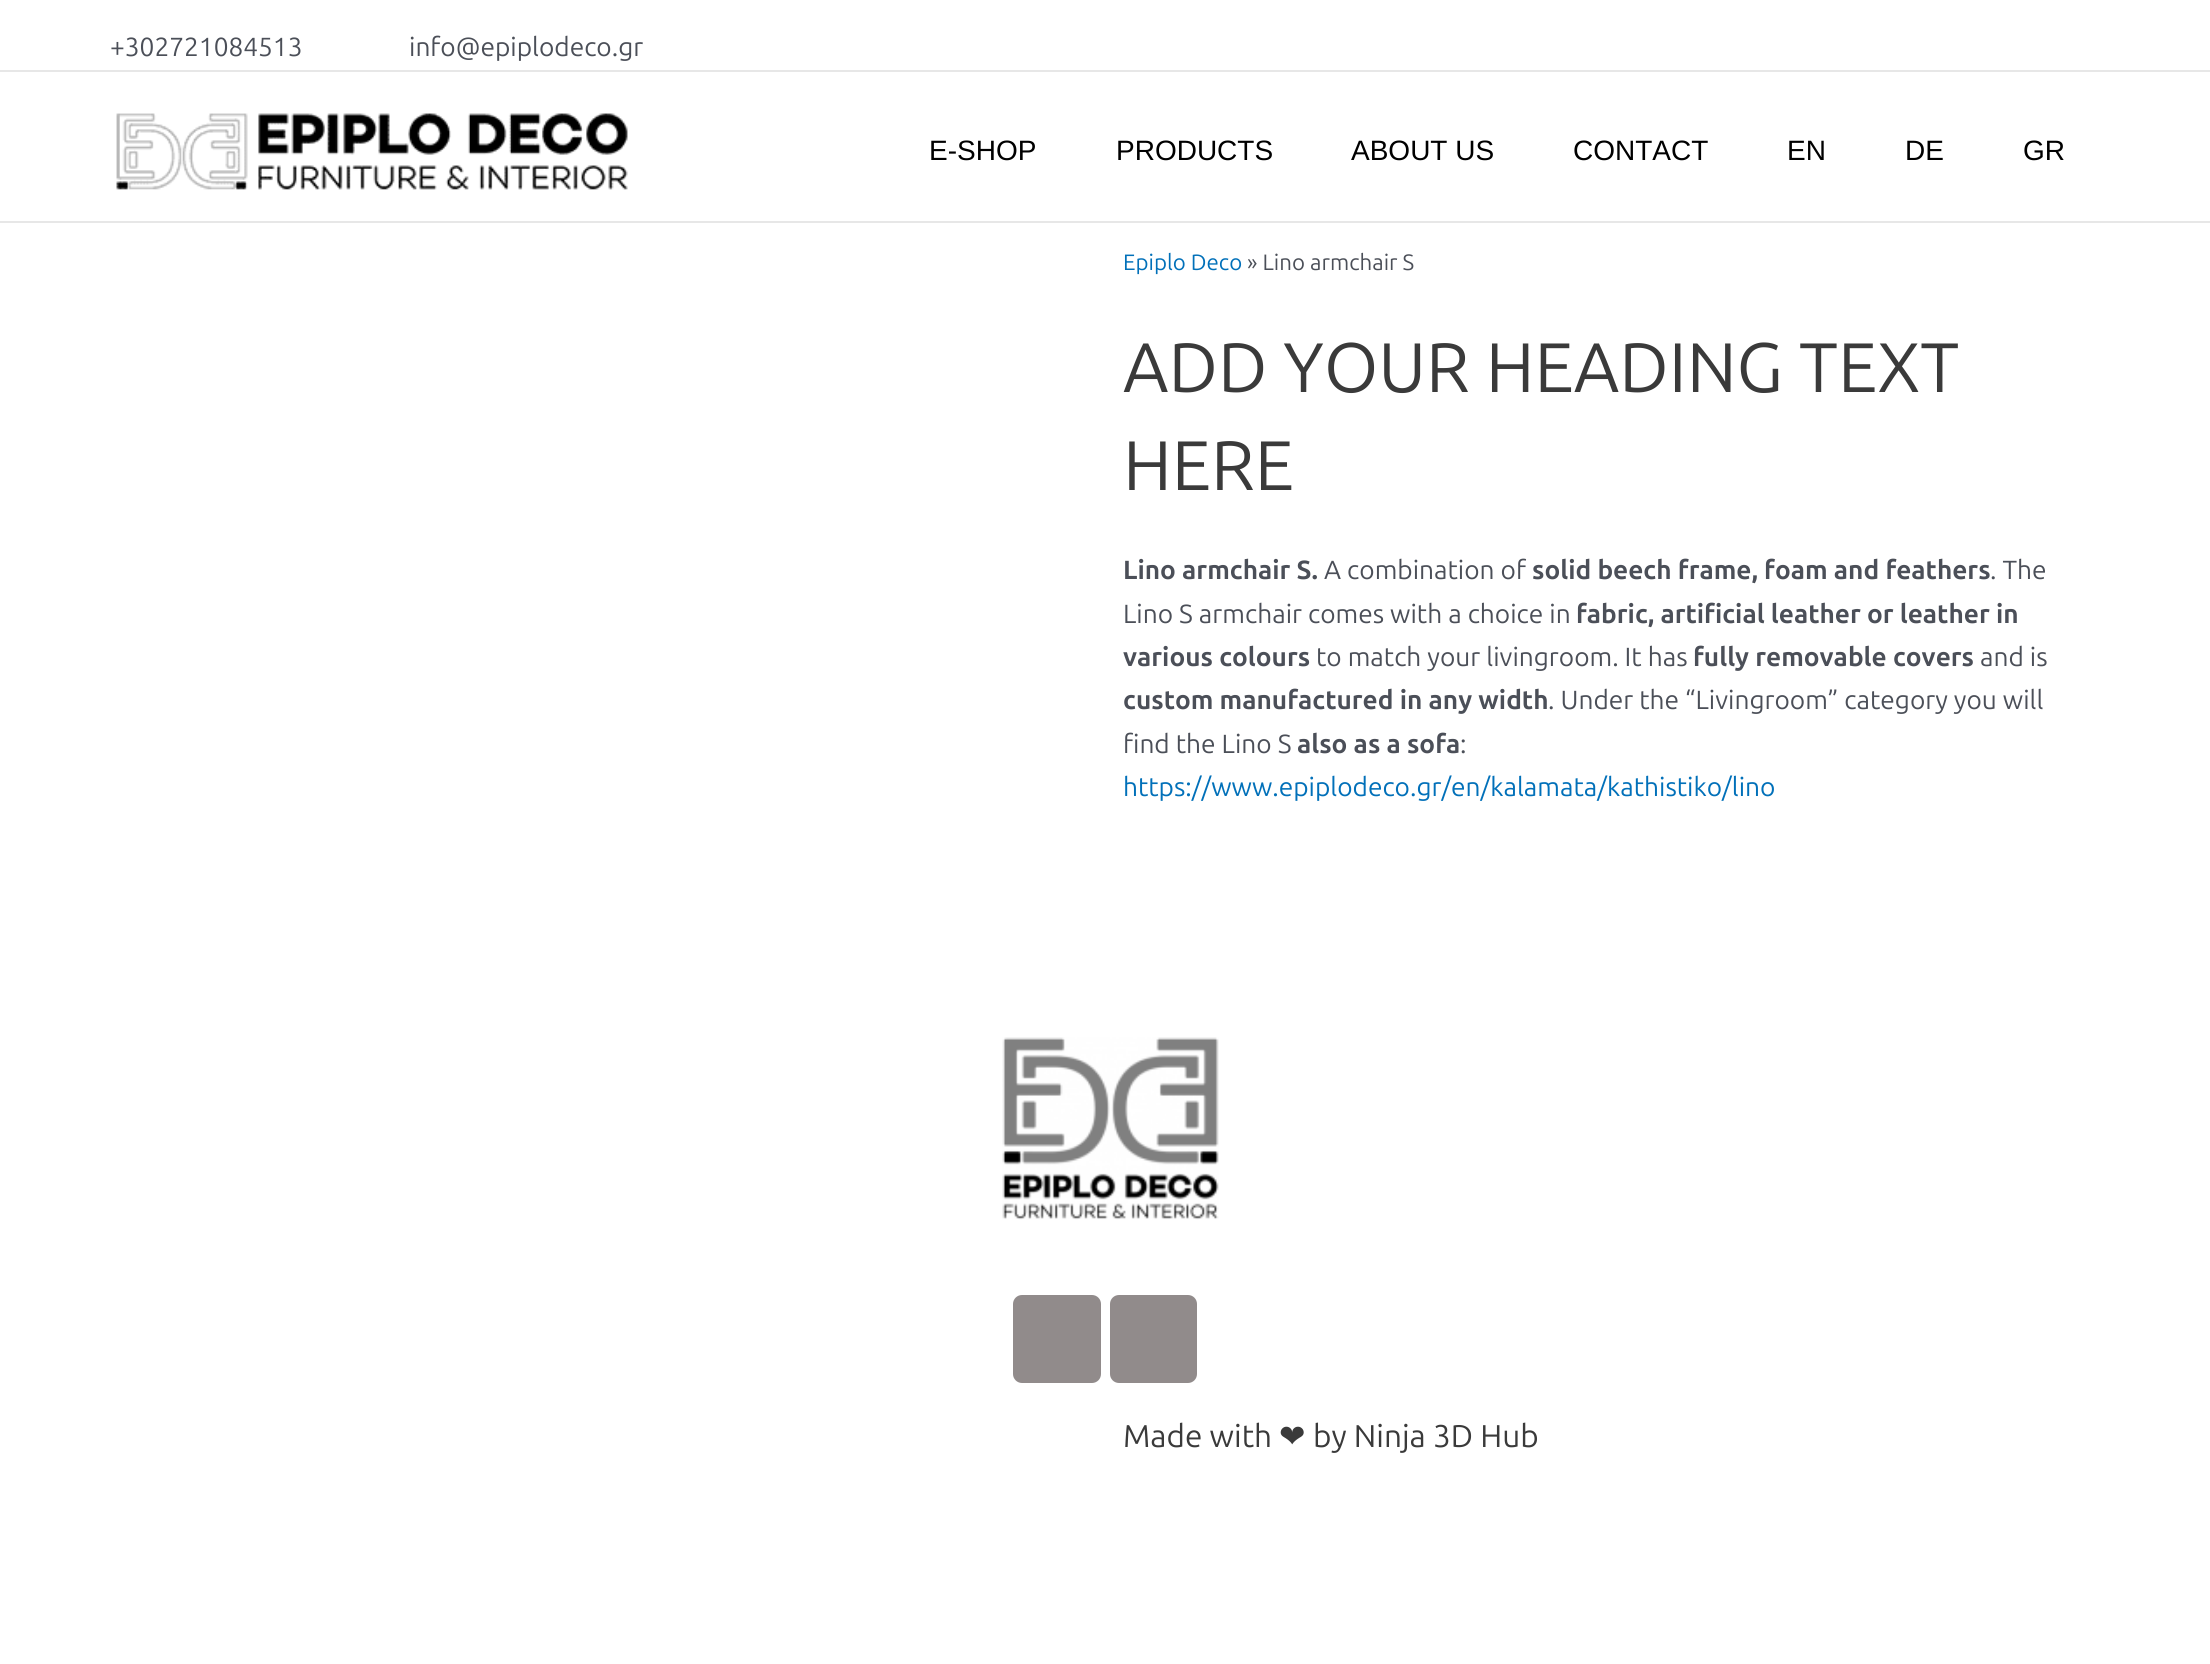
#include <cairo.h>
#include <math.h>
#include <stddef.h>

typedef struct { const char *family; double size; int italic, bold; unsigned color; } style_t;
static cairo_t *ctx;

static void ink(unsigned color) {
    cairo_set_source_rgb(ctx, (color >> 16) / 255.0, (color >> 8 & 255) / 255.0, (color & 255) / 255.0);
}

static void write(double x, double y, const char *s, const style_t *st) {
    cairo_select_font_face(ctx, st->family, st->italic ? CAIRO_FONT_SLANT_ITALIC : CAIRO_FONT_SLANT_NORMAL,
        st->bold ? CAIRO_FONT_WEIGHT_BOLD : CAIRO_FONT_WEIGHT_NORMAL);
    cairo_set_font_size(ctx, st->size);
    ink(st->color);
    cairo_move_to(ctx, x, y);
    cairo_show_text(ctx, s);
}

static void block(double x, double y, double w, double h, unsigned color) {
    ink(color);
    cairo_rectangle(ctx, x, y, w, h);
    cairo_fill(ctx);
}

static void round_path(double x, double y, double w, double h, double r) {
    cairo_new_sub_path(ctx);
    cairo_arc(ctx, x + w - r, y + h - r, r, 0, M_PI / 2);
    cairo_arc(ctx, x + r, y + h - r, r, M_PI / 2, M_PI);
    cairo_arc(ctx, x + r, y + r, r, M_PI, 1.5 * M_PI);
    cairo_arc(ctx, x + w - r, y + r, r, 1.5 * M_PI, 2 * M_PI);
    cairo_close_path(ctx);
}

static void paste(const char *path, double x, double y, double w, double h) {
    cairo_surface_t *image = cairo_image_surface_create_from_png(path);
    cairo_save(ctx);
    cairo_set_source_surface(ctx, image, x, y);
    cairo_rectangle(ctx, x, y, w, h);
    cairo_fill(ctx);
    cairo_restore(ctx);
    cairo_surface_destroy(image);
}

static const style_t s1 = {"Ubuntu", 26.25, 0, 0, 0x4b4f58};
static const style_t s2 = {"Liberation Sans", 28, 0, 0, 0x000000};
static const style_t s3 = {"Ubuntu", 22.25, 0, 0, 0x0170b9};
static const style_t s4 = {"Ubuntu", 22.25, 0, 0, 0x4b4f58};
static const style_t s5 = {"Ubuntu", 70, 0, 0, 0x3a3a3a};
static const style_t s6 = {"Ubuntu", 26.25, 0, 1, 0x4b4f58};
static const style_t s7 = {"Ubuntu", 26.25, 0, 0, 0x0170b9};
static const style_t s8 = {"Ubuntu", 31.5, 0, 0, 0x3a3a3a};
static const style_t s9 = {"DejaVu Sans", 31.5, 0, 0, 0x3a3a3a};

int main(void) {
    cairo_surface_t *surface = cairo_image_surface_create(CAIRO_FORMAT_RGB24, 2210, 1664);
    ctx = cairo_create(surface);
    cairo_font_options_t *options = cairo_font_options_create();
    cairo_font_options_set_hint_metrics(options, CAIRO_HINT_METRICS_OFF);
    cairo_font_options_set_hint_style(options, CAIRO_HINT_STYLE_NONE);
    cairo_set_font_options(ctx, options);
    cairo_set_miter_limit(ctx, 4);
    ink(0xffffff);
    cairo_paint(ctx);
    block(0, 70, 2210, 2, 0xe7e7e7);
    write(110, 56, "+302721084513", &s1);
    write(409, 56, "info@epiplodeco.gr", &s1);
    block(0, 221, 2210, 2, 0xe7e7e7);
    paste("pic1.png", 116, 113, 512, 77);
    write(929, 160, "E-SHOP", &s2);
    write(1116, 160, "PRODUCTS", &s2);
    write(1351, 160, "ABOUT US", &s2);
    write(1573, 160, "CONTACT", &s2);
    write(1787, 160, "EN", &s2);
    write(1905, 160, "DE", &s2);
    write(2023, 160, "GR", &s2);
    write(1123, 270, "Epiplo Deco", &s3);
    write(1247, 270, "» Lino armchair S", &s4);
    write(1123, 392, "ADD YOUR HEADING TEXT", &s5);
    write(1123, 490, "HERE", &s5);
    write(1123, 579, "Lino armchair S.", &s6);
    write(1324, 579, "A combination of", &s1);
    write(1532, 579, "solid beech frame, foam and feathers", &s6);
    write(1990, 579, ". The", &s1);
    write(1123, 623, "Lino S armchair comes with a choice in", &s1);
    write(1576, 623, "fabric, artificial leather or leather in", &s6);
    write(1123, 666, "various colours", &s6);
    write(1316, 666, "to match your livingroom. It has", &s1);
    write(1693, 666, "fully removable covers", &s6);
    write(1980, 666, "and is", &s1);
    write(1123, 709, "custom manufactured in any width", &s6);
    write(1548, 709, ". Under the “Livingroom” category you will", &s1);
    write(1123, 753, "find the Lino S", &s1);
    write(1297, 753, "also as a sofa", &s6);
    write(1460, 753, ":", &s1);
    write(1123, 796, "https://www.epiplodeco.gr/en/kalamata/kathistiko/lino", &s7);
    paste("pic2.png", 1002, 1037, 217, 183);
    ink(0x918b8b);
    round_path(1013, 1295, 88, 88, 9);
    cairo_fill(ctx);
    round_path(1110, 1295, 87, 88, 9);
    cairo_fill(ctx);
    write(1123, 1447, "Made with", &s8);
    write(1279, 1447, "❤", &s9);
    write(1313, 1447, "by Ninja 3D Hub", &s8);
    cairo_surface_write_to_png(surface, "screenshot.png");
    cairo_font_options_destroy(options);
    cairo_destroy(ctx);
    cairo_surface_destroy(surface);
    return 0;
}
